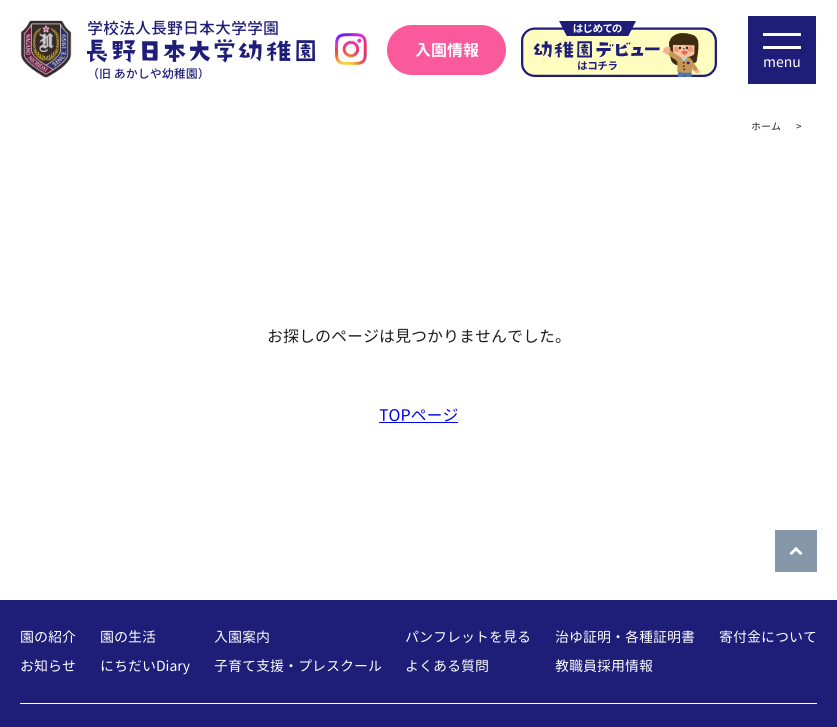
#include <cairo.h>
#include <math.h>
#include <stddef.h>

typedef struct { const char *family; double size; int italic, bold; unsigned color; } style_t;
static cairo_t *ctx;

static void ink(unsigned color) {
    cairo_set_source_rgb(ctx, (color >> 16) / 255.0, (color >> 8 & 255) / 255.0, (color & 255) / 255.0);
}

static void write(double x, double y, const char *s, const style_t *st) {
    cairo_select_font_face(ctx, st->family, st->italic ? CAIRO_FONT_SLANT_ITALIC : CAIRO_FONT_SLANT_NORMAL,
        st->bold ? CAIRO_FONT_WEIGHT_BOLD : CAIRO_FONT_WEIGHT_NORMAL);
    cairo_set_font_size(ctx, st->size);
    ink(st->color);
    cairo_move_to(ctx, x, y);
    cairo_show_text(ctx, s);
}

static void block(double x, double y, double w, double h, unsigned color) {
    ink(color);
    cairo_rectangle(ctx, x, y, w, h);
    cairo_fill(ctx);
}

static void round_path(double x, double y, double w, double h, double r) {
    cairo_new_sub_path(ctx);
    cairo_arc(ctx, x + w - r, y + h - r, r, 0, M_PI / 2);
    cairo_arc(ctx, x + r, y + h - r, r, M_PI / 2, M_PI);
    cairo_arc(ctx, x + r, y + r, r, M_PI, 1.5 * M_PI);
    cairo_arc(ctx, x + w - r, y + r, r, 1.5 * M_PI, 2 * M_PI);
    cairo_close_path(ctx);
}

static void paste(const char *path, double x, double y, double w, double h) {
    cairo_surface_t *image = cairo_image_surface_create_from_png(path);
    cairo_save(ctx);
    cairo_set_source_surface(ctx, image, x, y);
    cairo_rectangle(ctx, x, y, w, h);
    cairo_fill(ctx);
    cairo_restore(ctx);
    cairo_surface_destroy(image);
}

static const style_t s1 = {"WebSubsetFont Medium", 16, 0, 0, 0x1e1e78};
static const style_t s2 = {"WebSubsetFont Medium", 12, 0, 0, 0x1e1e78};
static const style_t s3 = {"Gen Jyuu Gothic", 16, 0, 1, 0xffffff};
static const style_t s4 = {"Noto Sans JP Thin", 14, 0, 0, 0xffffff};
static const style_t s5 = {"WebSubsetFont", 10, 0, 0, 0x1e1e1e};
static const style_t s6 = {"WebSubsetFont", 16, 0, 0, 0x1e1e1e};
static const style_t s7 = {"WebSubsetFont", 16, 0, 0, 0x0000ee};
static const style_t s8 = {"WebSubsetFont", 14, 0, 0, 0xffffff};

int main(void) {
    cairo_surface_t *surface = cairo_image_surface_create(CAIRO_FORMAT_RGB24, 837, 727);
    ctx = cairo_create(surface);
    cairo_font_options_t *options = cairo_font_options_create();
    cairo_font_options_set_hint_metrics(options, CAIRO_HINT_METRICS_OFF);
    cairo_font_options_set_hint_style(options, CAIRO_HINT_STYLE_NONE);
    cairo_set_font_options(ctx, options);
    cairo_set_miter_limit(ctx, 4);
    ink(0xffffff);
    cairo_paint(ctx);
    paste("pic1.png", 20, 20, 52, 58);
    write(87, 34, "学校法人長野日本大学学園", &s1);
    paste("pic2.png", 87, 39, 228, 24);
    write(87, 78, "（旧 あかしや幼稚園）", &s2);
    paste("pic3.png", 335, 33, 32, 32);
    ink(0xfa5a9b);
    round_path(387, 25, 119, 50, 25);
    cairo_fill(ctx);
    write(415, 56, "入園情報", &s3);
    paste("pic4.png", 521, 21, 196, 56);
    block(748, 16, 68, 68, 0x1e1e78);
    block(763, 33, 38, 3, 0xffffff);
    block(763, 46, 38, 3, 0xffffff);
    write(763, 67, "menu", &s4);
    write(751, 130, "ホーム", &s5);
    write(796, 130, ">", &s5);
    write(267, 342, "お探しのページは見つかりませんでした。", &s6);
    write(379, 421, "TOPページ", &s7);
    block(379, 422, 79, 1, 0x0000ee);
    block(0, 600, 837, 127, 0x1e1e78);
    paste("pic5.png", 775, 530, 42, 42);
    write(20, 642, "園の紹介", &s8);
    write(20, 671, "お知らせ", &s8);
    write(100, 642, "園の生活", &s8);
    write(100, 671, "にちだいDiary", &s8);
    write(214, 642, "入園案内", &s8);
    write(214, 671, "子育て支援・プレスクール", &s8);
    write(405, 642, "パンフレットを見る", &s8);
    write(405, 671, "よくある質問", &s8);
    write(555, 642, "治ゆ証明・各種証明書", &s8);
    write(555, 671, "教職員採用情報", &s8);
    write(719, 642, "寄付金について", &s8);
    block(20, 703, 797, 1, 0xffffff);
    cairo_surface_write_to_png(surface, "screenshot.png");
    cairo_font_options_destroy(options);
    cairo_destroy(ctx);
    cairo_surface_destroy(surface);
    return 0;
}
